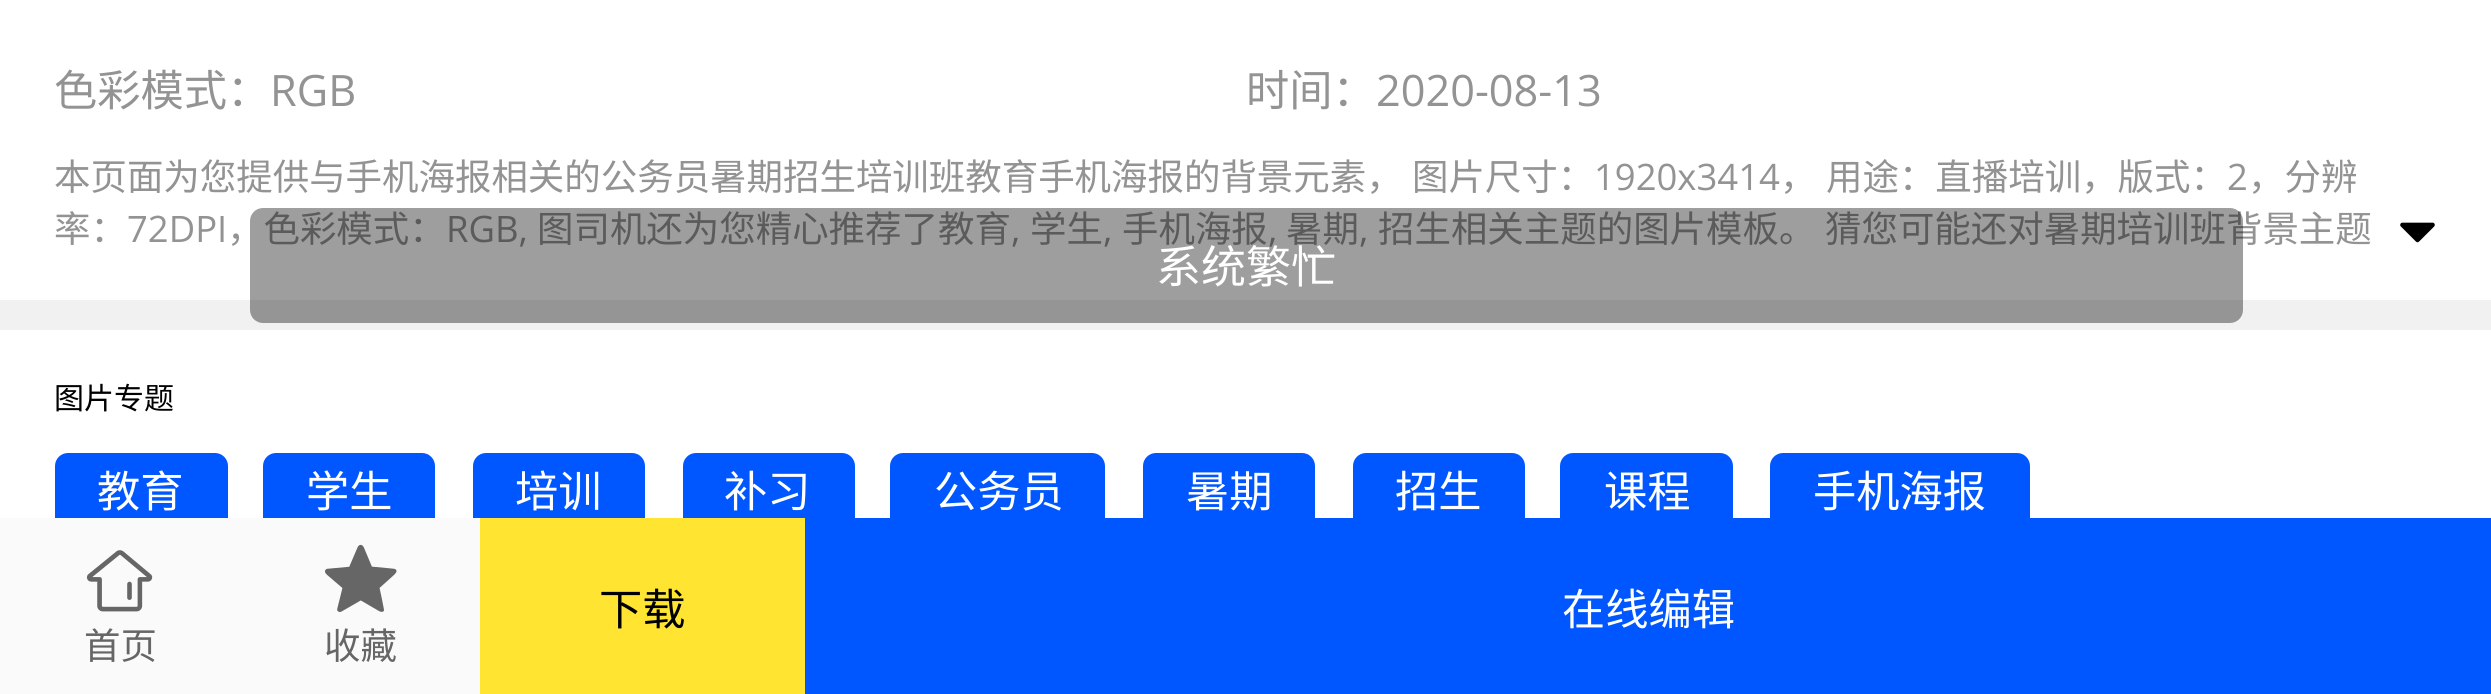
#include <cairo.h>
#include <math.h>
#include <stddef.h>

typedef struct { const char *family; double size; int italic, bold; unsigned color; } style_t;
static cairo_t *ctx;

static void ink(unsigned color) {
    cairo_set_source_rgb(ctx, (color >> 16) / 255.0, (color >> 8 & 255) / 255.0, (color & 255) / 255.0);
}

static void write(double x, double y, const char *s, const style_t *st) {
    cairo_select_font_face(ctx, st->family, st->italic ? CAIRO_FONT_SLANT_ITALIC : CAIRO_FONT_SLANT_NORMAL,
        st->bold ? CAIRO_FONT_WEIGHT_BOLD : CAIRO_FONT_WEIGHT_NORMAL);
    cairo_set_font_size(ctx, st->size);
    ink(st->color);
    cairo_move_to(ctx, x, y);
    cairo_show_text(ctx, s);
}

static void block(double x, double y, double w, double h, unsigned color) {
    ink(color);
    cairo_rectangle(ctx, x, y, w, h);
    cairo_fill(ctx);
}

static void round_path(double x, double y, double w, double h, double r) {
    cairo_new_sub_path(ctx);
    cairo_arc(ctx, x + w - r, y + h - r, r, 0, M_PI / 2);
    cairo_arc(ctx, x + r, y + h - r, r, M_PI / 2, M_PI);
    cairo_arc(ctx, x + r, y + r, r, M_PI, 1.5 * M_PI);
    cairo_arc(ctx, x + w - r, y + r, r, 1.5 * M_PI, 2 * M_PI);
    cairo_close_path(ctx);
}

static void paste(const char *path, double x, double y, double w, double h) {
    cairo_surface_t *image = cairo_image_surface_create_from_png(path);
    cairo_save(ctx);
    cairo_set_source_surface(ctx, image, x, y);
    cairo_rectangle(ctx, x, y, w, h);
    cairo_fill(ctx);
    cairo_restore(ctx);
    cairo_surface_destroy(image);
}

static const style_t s1 = {"Noto Sans CJK SC", 43.25, 0, 0, 0x939393};
static const style_t s2 = {"Open Sans", 43.25, 0, 0, 0x939393};
static const style_t s3 = {"Noto Sans CJK SC", 36.45, 0, 0, 0x939393};
static const style_t s4 = {"Open Sans", 36.45, 0, 0, 0x939393};
static const style_t s5 = {"Noto Sans CJK SC", 30, 0, 0, 0x000000};
static const style_t s6 = {"Noto Sans CJK SC", 43.25, 0, 0, 0xffffff};
static const style_t s7 = {"Noto Sans CJK SC", 43.25, 0, 0, 0x000000};
static const style_t s8 = {"Noto Sans CJK SC", 36.45, 0, 0, 0x666666};
static const style_t s9 = {"Noto Sans CJK SC", 45, 0, 0, 0xffffff};

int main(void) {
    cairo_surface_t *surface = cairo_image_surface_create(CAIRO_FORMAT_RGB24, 2491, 694);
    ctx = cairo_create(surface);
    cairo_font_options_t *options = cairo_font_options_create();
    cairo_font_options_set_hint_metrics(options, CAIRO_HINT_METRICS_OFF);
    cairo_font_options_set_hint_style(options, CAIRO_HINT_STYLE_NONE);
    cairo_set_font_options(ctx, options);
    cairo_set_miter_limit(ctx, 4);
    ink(0xf1f1f1);
    cairo_paint(ctx);
    block(0, 0, 2491, 300, 0xffffff);
    write(54, 106, "色彩模式：", &s1);
    write(270, 106, "RGB", &s2);
    write(1246, 106, "时间：", &s1);
    write(1376, 106, "2020-08-13", &s2);
    write(54, 190, "本页面为您提供与手机海报相关的公务员暑期招生培训班教育手机海报的背景元素，", &s3);
    write(1412, 190, "图片尺寸：", &s3);
    write(1594, 190, "1920x3414", &s4);
    write(1780, 190, "，", &s3);
    write(1826, 190, "用途：直播培训，版式：", &s3);
    write(2227, 190, "2", &s4);
    write(2248, 190, "，分辨", &s3);
    write(54, 242, "率：", &s3);
    write(127, 242, "72DPI", &s4);
    write(227, 242, "，色彩模式：", &s3);
    write(446, 242, "RGB,", &s4);
    write(537, 242, "图司机还为您精心推荐了教育", &s3);
    write(1011, 242, ",", &s4);
    write(1030, 242, "学生", &s3);
    write(1103, 242, ",", &s4);
    write(1122, 242, "手机海报", &s3);
    write(1268, 242, ",", &s4);
    write(1286, 242, "暑期", &s3);
    write(1359, 242, ",", &s4);
    write(1378, 242, "招生相关主题的图片模板。", &s3);
    write(1825, 242, "猜您可能还对暑期培训班背景主题", &s3);
    paste("pic1.png", 2400, 222, 35, 21);
    block(0, 330, 2491, 188, 0xffffff);
    write(54, 409, "图片专题", &s5);
    ink(0x0057ff);
    round_path(55, 453, 173, 80, 13);
    cairo_fill(ctx);
    write(97, 507, "教育", &s6);
    ink(0x0057ff);
    round_path(263, 453, 172, 80, 13);
    cairo_fill(ctx);
    write(306, 507, "学生", &s6);
    ink(0x0057ff);
    round_path(473, 453, 172, 80, 13);
    cairo_fill(ctx);
    write(515, 507, "培训", &s6);
    ink(0x0057ff);
    round_path(683, 453, 172, 80, 13);
    cairo_fill(ctx);
    write(724, 507, "补习", &s6);
    ink(0x0057ff);
    round_path(890, 453, 215, 80, 13);
    cairo_fill(ctx);
    write(934, 507, "公务员", &s6);
    ink(0x0057ff);
    round_path(1143, 453, 172, 80, 13);
    cairo_fill(ctx);
    write(1186, 507, "暑期", &s6);
    ink(0x0057ff);
    round_path(1353, 453, 172, 80, 13);
    cairo_fill(ctx);
    write(1395, 507, "招生", &s6);
    ink(0x0057ff);
    round_path(1560, 453, 173, 80, 13);
    cairo_fill(ctx);
    write(1604, 507, "课程", &s6);
    ink(0x0057ff);
    round_path(1770, 453, 260, 80, 13);
    cairo_fill(ctx);
    write(1813, 507, "手机海报", &s6);
    block(0, 518, 480, 176, 0xfafafa);
    block(480, 518, 325, 176, 0xffe432);
    write(599, 625, "下载", &s7);
    block(805, 518, 1686, 176, 0x0057ff);
    write(1562, 625, "在线编辑", &s6);
    paste("pic2.png", 86, 550, 67, 62);
    write(84, 659, "首页", &s8);
    paste("pic3.png", 325, 544, 72, 68);
    write(324, 659, "收藏", &s8);
    cairo_set_source_rgba(ctx, 0, 0, 0, 0.38);
    round_path(250, 208, 1993, 115, 13);
    cairo_fill(ctx);
    write(1156, 283, "系统繁忙", &s9);
    cairo_surface_write_to_png(surface, "screenshot.png");
    cairo_font_options_destroy(options);
    cairo_destroy(ctx);
    cairo_surface_destroy(surface);
    return 0;
}
